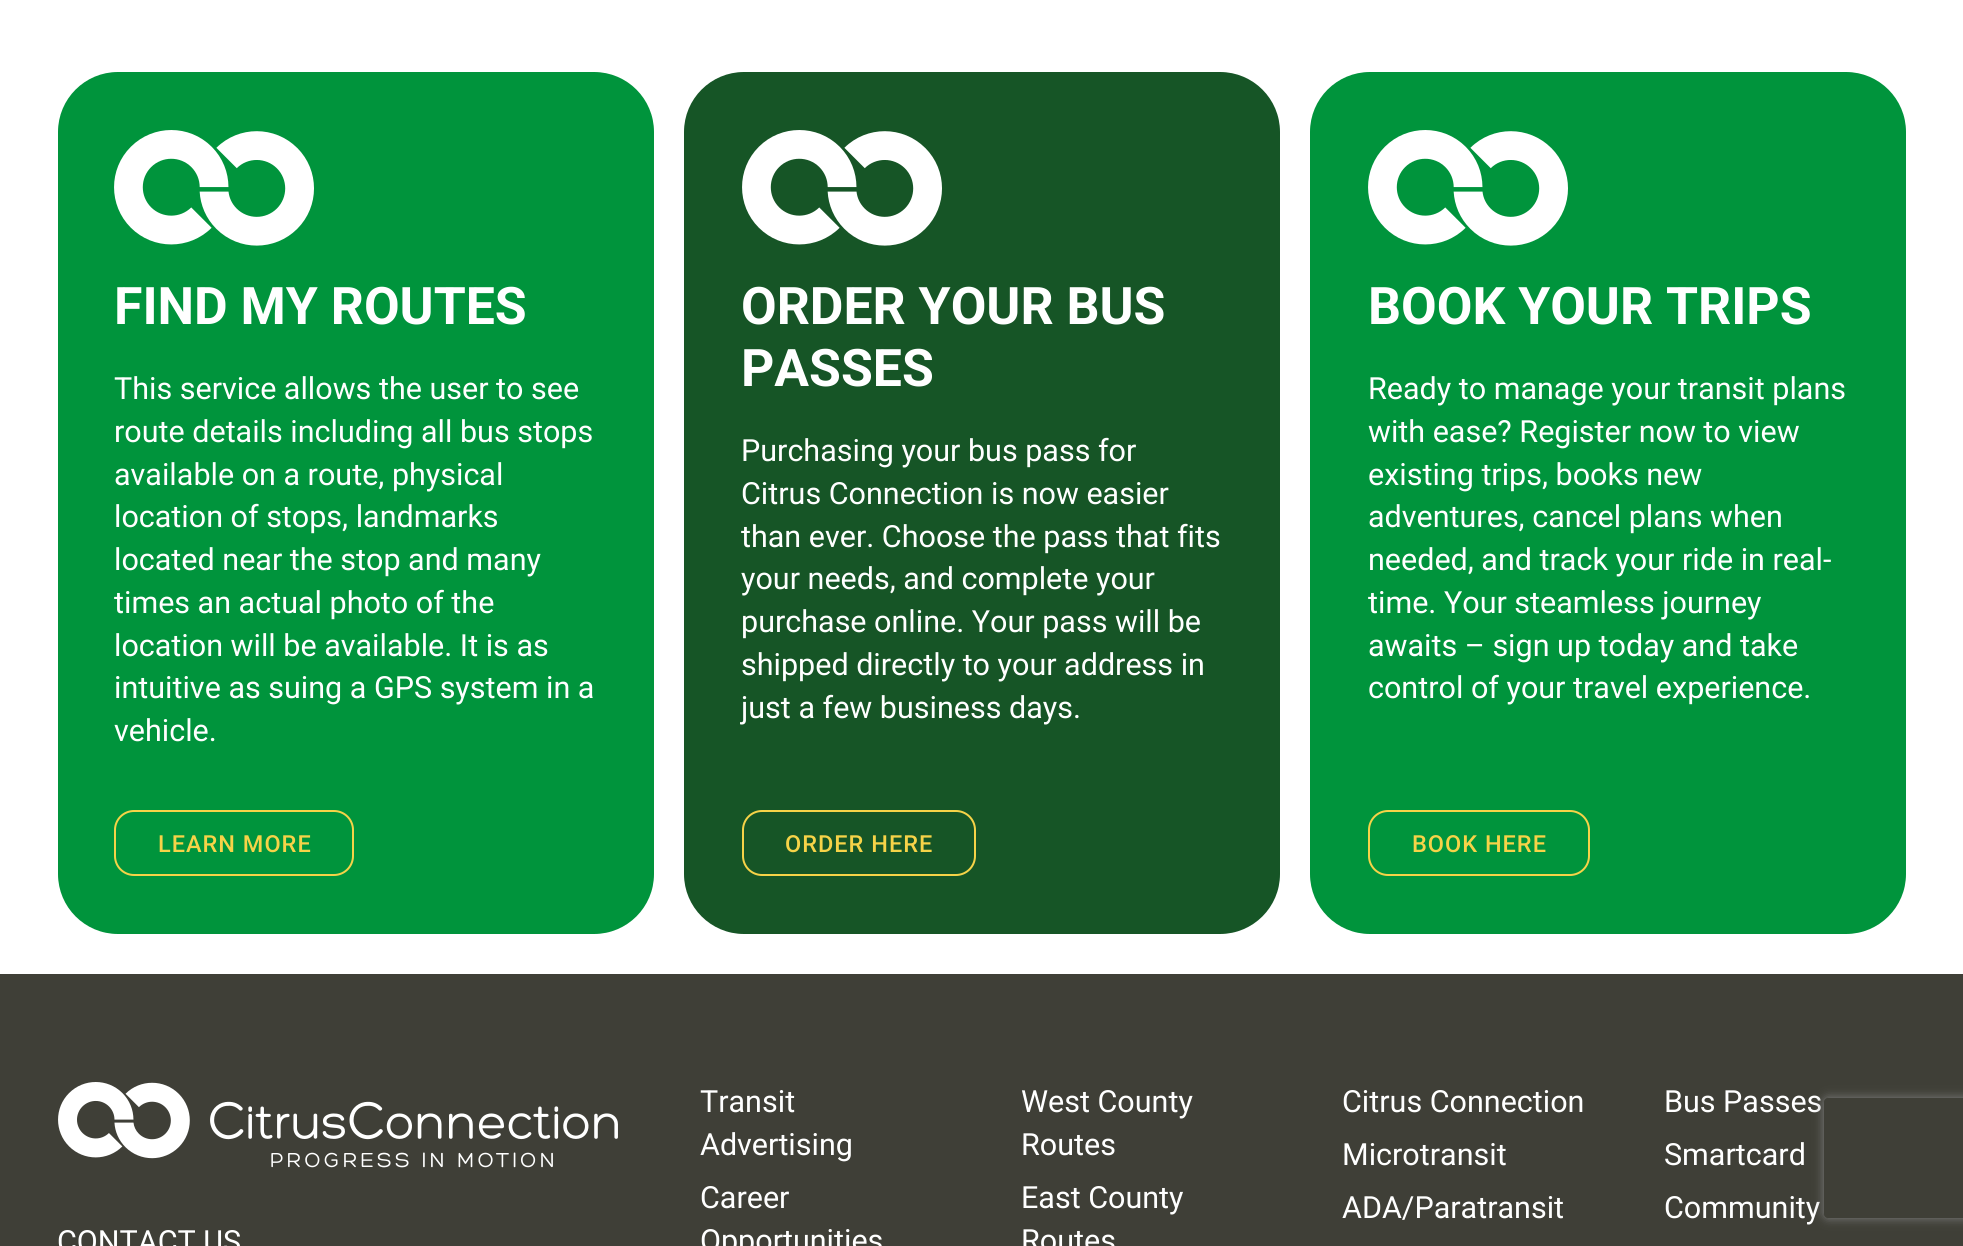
#include <cairo.h>
#include <math.h>
#include <stddef.h>

typedef struct { const char *family; double size; int italic, bold; unsigned color; } style_t;
static cairo_t *ctx;

static void ink(unsigned color) {
    cairo_set_source_rgb(ctx, (color >> 16) / 255.0, (color >> 8 & 255) / 255.0, (color & 255) / 255.0);
}

static void write(double x, double y, const char *s, const style_t *st) {
    cairo_select_font_face(ctx, st->family, st->italic ? CAIRO_FONT_SLANT_ITALIC : CAIRO_FONT_SLANT_NORMAL,
        st->bold ? CAIRO_FONT_WEIGHT_BOLD : CAIRO_FONT_WEIGHT_NORMAL);
    cairo_set_font_size(ctx, st->size);
    ink(st->color);
    cairo_move_to(ctx, x, y);
    cairo_show_text(ctx, s);
}

static void write_spaced(double x, double y, const char *s, double letter, double word) {
    cairo_move_to(ctx, x, y);
    while (*s) {
        char ch[5] = {0};
        int n = 0;
        do ch[n++] = *s++; while ((*s & 0xC0) == 0x80);
        cairo_show_text(ctx, ch);
        cairo_rel_move_to(ctx, letter + word * (*ch == ' '), 0);
    }
}

static void block(double x, double y, double w, double h, unsigned color) {
    ink(color);
    cairo_rectangle(ctx, x, y, w, h);
    cairo_fill(ctx);
}

static void round_path(double x, double y, double w, double h, double r) {
    cairo_new_sub_path(ctx);
    cairo_arc(ctx, x + w - r, y + h - r, r, 0, M_PI / 2);
    cairo_arc(ctx, x + r, y + h - r, r, M_PI / 2, M_PI);
    cairo_arc(ctx, x + r, y + r, r, M_PI, 1.5 * M_PI);
    cairo_arc(ctx, x + w - r, y + r, r, 1.5 * M_PI, 2 * M_PI);
    cairo_close_path(ctx);
}

static void blur_box(double x, double y, double w, double h, double r, double blur, double alpha) {
    cairo_push_group_with_content(ctx, CAIRO_CONTENT_ALPHA);
    cairo_set_operator(ctx, CAIRO_OPERATOR_SOURCE);
    for (int i = 15; i >= -15 && fmin(w, h) + blur * i / 3 > 0; i -= 2) {
        double e = blur * i / 6;
        cairo_set_source_rgba(ctx, 0, 0, 0, alpha * erfc((i - 1) / 8.5) / 2);
        round_path(x - e, y - e, w + 2 * e, h + 2 * e, fmax(0, fmin(r + e + blur * .6, fmin(w, h) / 2 + e)));
        cairo_fill(ctx);
    }
    cairo_pattern_t *soft = cairo_pop_group(ctx);
    cairo_mask(ctx, soft);
    cairo_pattern_destroy(soft);
}

static void paste(const char *path, double x, double y, double w, double h) {
    cairo_surface_t *image = cairo_image_surface_create_from_png(path);
    cairo_save(ctx);
    cairo_set_source_surface(ctx, image, x, y);
    cairo_rectangle(ctx, x, y, w, h);
    cairo_fill(ctx);
    cairo_restore(ctx);
    cairo_surface_destroy(image);
}

static const style_t s1 = {"Roboto", 51.75, 0, 1, 0xffffff};
static const style_t s2 = {"Roboto", 30.5, 0, 0, 0xffffff};

int main(void) {
    cairo_surface_t *surface = cairo_image_surface_create(CAIRO_FORMAT_RGB24, 1963, 1246);
    ctx = cairo_create(surface);
    cairo_font_options_t *options = cairo_font_options_create();
    cairo_font_options_set_hint_metrics(options, CAIRO_HINT_METRICS_OFF);
    cairo_font_options_set_hint_style(options, CAIRO_HINT_STYLE_NONE);
    cairo_set_font_options(ctx, options);
    cairo_set_miter_limit(ctx, 4);
    ink(0xffffff);
    cairo_paint(ctx);
    ink(0x00943c);
    round_path(58, 72, 596, 862, 60);
    cairo_fill(ctx);
    paste("pic1.png", 114, 130, 200, 116);
    write(114, 324, "FIND MY ROUTES", &s1);
    write(114, 399, "This service allows the user to see", &s2);
    write(114, 442, "route details including all bus stops", &s2);
    write(114, 485, "available on a route, physical", &s2);
    write(114, 527, "location of stops, landmarks", &s2);
    write(114, 570, "located near the stop and many", &s2);
    write(114, 613, "times an actual photo of the", &s2);
    write(114, 656, "location will be available. It is as", &s2);
    write(114, 698, "intuitive as suing a GPS system in a", &s2);
    write(114, 741, "vehicle.", &s2);
    round_path(115, 811, 238, 64, 19);
    ink(0xf6d348);
    cairo_stroke(ctx);
    cairo_select_font_face(ctx, "Roboto Medium", CAIRO_FONT_SLANT_NORMAL, CAIRO_FONT_WEIGHT_NORMAL);
    cairo_set_font_size(ctx, 23.5);
    write_spaced(158, 852, "LEARN MORE", 1, 0);
    ink(0x165526);
    round_path(684, 72, 596, 862, 60);
    cairo_fill(ctx);
    paste("pic2.png", 742, 130, 200, 116);
    write(741, 324, "ORDER YOUR BUS", &s1);
    write(741, 386, "PASSES", &s1);
    write(741, 461, "Purchasing your bus pass for", &s2);
    write(741, 504, "Citrus Connection is now easier", &s2);
    write(741, 547, "than ever. Choose the pass that fits", &s2);
    write(741, 589, "your needs, and complete your", &s2);
    write(741, 632, "purchase online. Your pass will be", &s2);
    write(741, 675, "shipped directly to your address in", &s2);
    write(741, 718, "just a few business days.", &s2);
    round_path(743, 811, 232, 64, 19);
    ink(0xf6d348);
    cairo_stroke(ctx);
    cairo_select_font_face(ctx, "Roboto Medium", CAIRO_FONT_SLANT_NORMAL, CAIRO_FONT_WEIGHT_NORMAL);
    cairo_set_font_size(ctx, 23.5);
    write_spaced(785, 852, "ORDER HERE", 1, 0);
    ink(0x00943c);
    round_path(1310, 72, 596, 862, 60);
    cairo_fill(ctx);
    paste("pic1.png", 1368, 130, 200, 116);
    write(1368, 324, "BOOK YOUR TRIPS", &s1);
    write(1368, 399, "Ready to manage your transit plans", &s2);
    write(1368, 442, "with ease? Register now to view", &s2);
    write(1368, 485, "existing trips, books new", &s2);
    write(1368, 527, "adventures, cancel plans when", &s2);
    write(1368, 570, "needed, and track your ride in real-", &s2);
    write(1368, 613, "time. Your steamless journey", &s2);
    write(1368, 656, "awaits – sign up today and take", &s2);
    write(1368, 698, "control of your travel experience.", &s2);
    round_path(1369, 811, 220, 64, 19);
    ink(0xf6d348);
    cairo_stroke(ctx);
    cairo_select_font_face(ctx, "Roboto Medium", CAIRO_FONT_SLANT_NORMAL, CAIRO_FONT_WEIGHT_NORMAL);
    cairo_set_font_size(ctx, 23.5);
    write_spaced(1412, 852, "BOOK HERE", 1, 0);
    block(0, 974, 1963, 272, 0x3f3f37);
    write(700, 1112, "Transit", &s2);
    write(700, 1155, "Advertising", &s2);
    write(700, 1208, "Career", &s2);
    write(700, 1251, "Opportunities", &s2);
    write(1021, 1112, "West County", &s2);
    write(1021, 1155, "Routes", &s2);
    write(1021, 1208, "East County", &s2);
    write(1021, 1251, "Routes", &s2);
    write(1342, 1112, "Citrus Connection", &s2);
    write(1342, 1165, "Microtransit", &s2);
    write(1342, 1218, "ADA/Paratransit", &s2);
    write(1664, 1112, "Bus Passes", &s2);
    write(1664, 1165, "Smartcard", &s2);
    write(1664, 1218, "Community", &s2);
    paste("pic3.png", 58, 1082, 560, 86);
    write(57, 1252, "CONTACT US", &s2);
    cairo_save(ctx);
    cairo_set_fill_rule(ctx, CAIRO_FILL_RULE_EVEN_ODD);
    cairo_new_path(ctx);
    cairo_move_to(ctx, 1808, 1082);
    cairo_line_to(ctx, 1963, 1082);
    cairo_line_to(ctx, 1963, 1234);
    cairo_line_to(ctx, 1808, 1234);
    cairo_close_path(ctx);
    cairo_move_to(ctx, 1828, 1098);
    cairo_line_to(ctx, 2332, 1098);
    cairo_curve_to(ctx, 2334, 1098, 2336, 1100, 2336, 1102);
    cairo_line_to(ctx, 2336, 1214);
    cairo_curve_to(ctx, 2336, 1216, 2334, 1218, 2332, 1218);
    cairo_line_to(ctx, 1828, 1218);
    cairo_curve_to(ctx, 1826, 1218, 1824, 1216, 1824, 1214);
    cairo_line_to(ctx, 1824, 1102);
    cairo_curve_to(ctx, 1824, 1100, 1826, 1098, 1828, 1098);
    cairo_close_path(ctx);
    cairo_clip(ctx);
    ink(0x808080);
    blur_box(1824, 1098, 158, 120, 4, 5, 1);
    cairo_restore(ctx);
    cairo_surface_write_to_png(surface, "screenshot.png");
    cairo_font_options_destroy(options);
    cairo_destroy(ctx);
    cairo_surface_destroy(surface);
    return 0;
}
